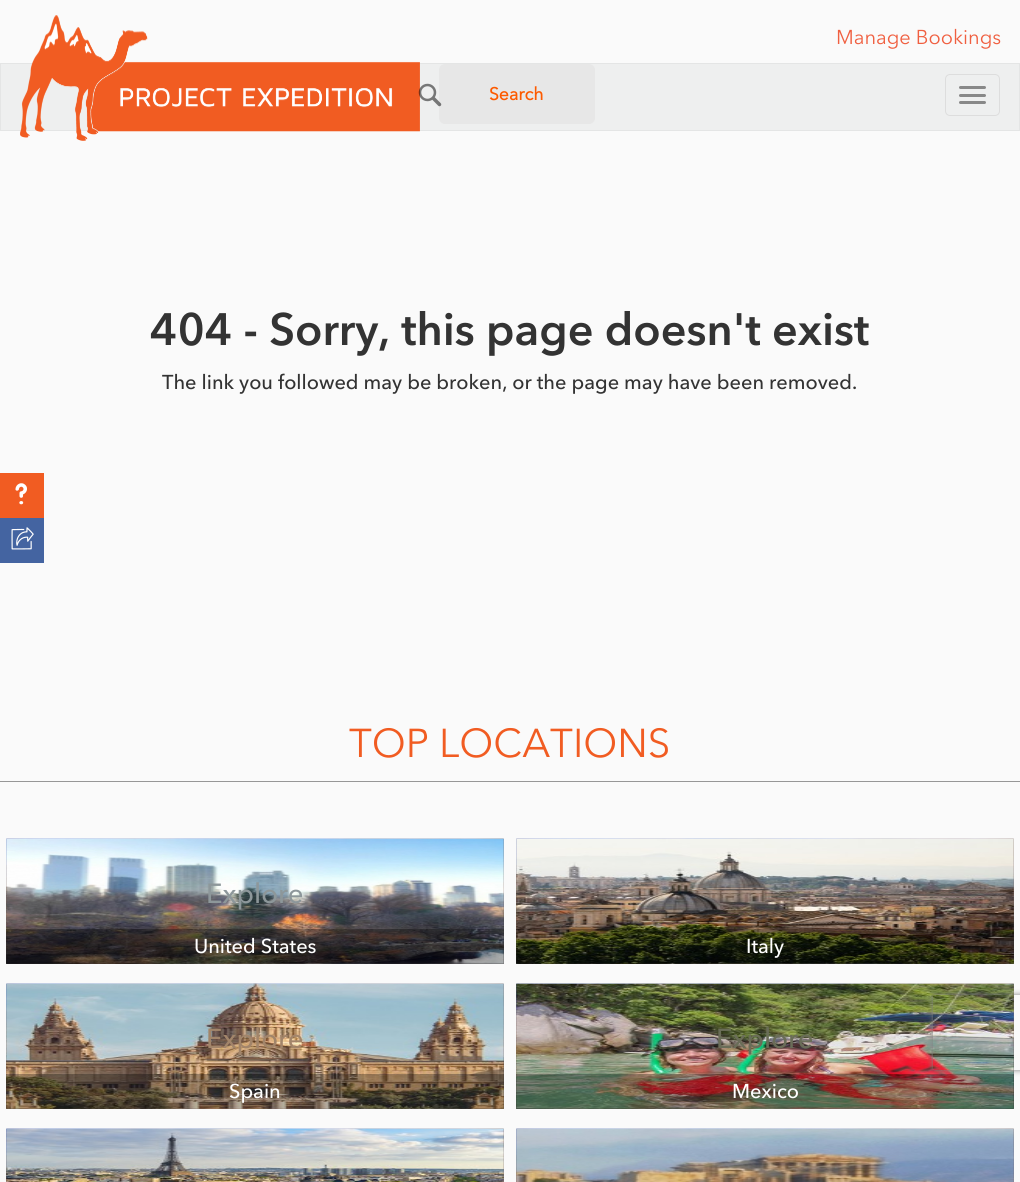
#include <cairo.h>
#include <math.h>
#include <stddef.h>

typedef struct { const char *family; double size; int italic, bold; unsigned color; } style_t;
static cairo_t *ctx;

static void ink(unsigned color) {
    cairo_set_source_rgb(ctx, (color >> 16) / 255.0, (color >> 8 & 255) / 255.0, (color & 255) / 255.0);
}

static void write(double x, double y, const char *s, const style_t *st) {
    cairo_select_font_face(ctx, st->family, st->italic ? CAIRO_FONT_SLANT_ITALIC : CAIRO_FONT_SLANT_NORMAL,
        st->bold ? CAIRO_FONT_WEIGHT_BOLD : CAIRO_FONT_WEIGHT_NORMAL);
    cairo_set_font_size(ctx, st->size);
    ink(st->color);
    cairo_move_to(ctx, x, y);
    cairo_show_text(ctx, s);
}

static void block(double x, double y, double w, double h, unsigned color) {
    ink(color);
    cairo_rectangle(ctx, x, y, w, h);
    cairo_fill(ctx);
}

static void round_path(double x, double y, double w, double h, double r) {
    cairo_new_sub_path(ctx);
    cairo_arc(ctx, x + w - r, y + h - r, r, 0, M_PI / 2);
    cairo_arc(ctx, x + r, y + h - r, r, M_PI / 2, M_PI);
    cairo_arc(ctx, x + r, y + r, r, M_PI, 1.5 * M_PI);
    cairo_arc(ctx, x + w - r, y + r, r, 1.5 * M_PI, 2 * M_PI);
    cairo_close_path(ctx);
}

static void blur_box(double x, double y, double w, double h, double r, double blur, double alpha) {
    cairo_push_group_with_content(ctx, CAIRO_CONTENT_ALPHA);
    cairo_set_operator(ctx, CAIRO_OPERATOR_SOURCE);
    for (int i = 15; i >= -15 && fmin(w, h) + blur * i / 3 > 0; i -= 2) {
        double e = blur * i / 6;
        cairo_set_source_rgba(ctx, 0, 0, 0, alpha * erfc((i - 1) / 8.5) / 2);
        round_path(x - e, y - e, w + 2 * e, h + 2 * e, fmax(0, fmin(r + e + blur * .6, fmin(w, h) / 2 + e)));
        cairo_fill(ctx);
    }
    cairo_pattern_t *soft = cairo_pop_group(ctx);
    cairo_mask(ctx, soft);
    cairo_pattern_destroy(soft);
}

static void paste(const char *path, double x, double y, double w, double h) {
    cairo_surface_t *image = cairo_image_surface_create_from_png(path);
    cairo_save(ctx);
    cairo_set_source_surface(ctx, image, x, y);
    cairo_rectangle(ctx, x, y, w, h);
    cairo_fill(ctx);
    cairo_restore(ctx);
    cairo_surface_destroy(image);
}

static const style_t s1 = {"Avenir Next", 20, 0, 0, 0xf05f40};
static const style_t s2 = {"Avenir Next", 17.5, 0, 1, 0xfd5a00};
static const style_t s3 = {"Avenir Next SemiBold", 45, 0, 0, 0x333333};
static const style_t s4 = {"Avenir Next Medium", 20, 0, 0, 0x333333};
static const style_t s5 = {"Avenir Next", 40, 0, 0, 0xf15c22};
static const style_t s6 = {"Avenir Next Medium", 27.5, 0, 0, 0x8d979a};
static const style_t s7 = {"Avenir Next Medium", 20, 0, 0, 0xffffff};
static const style_t s8 = {"Avenir Next Medium", 27.5, 0, 0, 0xa2856a};
static const style_t s9 = {"Avenir Next Medium", 27.5, 0, 0, 0x6a6d58};

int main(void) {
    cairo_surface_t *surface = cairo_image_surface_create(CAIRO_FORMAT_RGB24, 1020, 1182);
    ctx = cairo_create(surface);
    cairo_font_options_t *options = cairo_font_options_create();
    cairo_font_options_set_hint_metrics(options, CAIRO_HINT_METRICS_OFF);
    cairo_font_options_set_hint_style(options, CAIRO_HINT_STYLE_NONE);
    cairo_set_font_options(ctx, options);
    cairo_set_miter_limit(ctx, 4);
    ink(0xfafafa);
    cairo_paint(ctx);
    write(836, 44, "Manage Bookings", &s1);
    ink(0xeeefef);
    cairo_rectangle(ctx, 0.5, 63.5, 1019, 67);
    cairo_fill_preserve(ctx);
    ink(0xe4e5e5);
    cairo_set_line_width(ctx, 1);
    cairo_stroke(ctx);
    paste("pic1.png", 20, 15, 400, 126);
    ink(0xe7e7e7);
    round_path(439, 64, 156, 60, 6);
    cairo_fill(ctx);
    paste("pic2.png", 418, 83, 24, 24);
    write(489, 100, "Search", &s2);
    round_path(945.5, 74.5, 54, 41, 4.5);
    ink(0xdddddd);
    cairo_stroke(ctx);
    ink(0x888888);
    round_path(959, 86, 27, 3, 1.5);
    cairo_fill(ctx);
    round_path(959, 94, 27, 3, 1.5);
    cairo_fill(ctx);
    round_path(959, 101, 27, 3, 1.5);
    cairo_fill(ctx);
    write(150, 345, "404 - Sorry, this page doesn't exist", &s3);
    write(162, 389, "The link you followed may be broken, or the page may have been removed.", &s4);
    block(0, 473, 44, 45, 0xf15c22);
    paste("pic3.png", 15, 483, 12, 22);
    block(0, 518, 44, 45, 0x4464a1);
    paste("pic4.png", 11, 527, 23, 23);
    block(0, 781, 1020, 1, 0x979797);
    write(349, 757, "TOP LOCATIONS", &s5);
    paste("pic5.png", 6, 838, 498, 126);
    write(206, 903, "Explore", &s6);
    cairo_set_source_rgba(ctx, 0, 0, 0, 0.3);
    cairo_rectangle(ctx, 6, 929, 498, 35);
    cairo_fill(ctx);
    write(194, 953, "United States", &s7);
    paste("pic6.png", 516, 838, 498, 126);
    cairo_set_source_rgba(ctx, 0, 0, 0, 0.3);
    cairo_rectangle(ctx, 516, 929, 498, 35);
    cairo_fill(ctx);
    write(746, 953, "Italy", &s7);
    paste("pic7.png", 6, 983, 498, 126);
    write(206, 1048, "Explore", &s8);
    cairo_set_source_rgba(ctx, 0, 0, 0, 0.3);
    cairo_rectangle(ctx, 6, 1074, 498, 35);
    cairo_fill(ctx);
    write(229, 1098, "Spain", &s7);
    paste("pic8.png", 516, 983, 498, 126);
    write(716, 1048, "Explore", &s9);
    cairo_set_source_rgba(ctx, 0, 0, 0, 0.3);
    cairo_rectangle(ctx, 516, 1074, 498, 35);
    cairo_fill(ctx);
    write(732, 1098, "Mexico", &s7);
    paste("pic9.png", 6, 1128, 498, 54);
    paste("pic10.png", 516, 1128, 498, 54);
    cairo_save(ctx);
    cairo_set_fill_rule(ctx, CAIRO_FILL_RULE_EVEN_ODD);
    cairo_new_path(ctx);
    cairo_move_to(ctx, 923, 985);
    cairo_line_to(ctx, 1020, 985);
    cairo_line_to(ctx, 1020, 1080);
    cairo_line_to(ctx, 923, 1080);
    cairo_close_path(ctx);
    cairo_move_to(ctx, 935.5, 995);
    cairo_line_to(ctx, 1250.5, 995);
    cairo_curve_to(ctx, 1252, 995, 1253, 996, 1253, 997.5);
    cairo_line_to(ctx, 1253, 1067.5);
    cairo_curve_to(ctx, 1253, 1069, 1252, 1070, 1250.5, 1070);
    cairo_line_to(ctx, 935.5, 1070);
    cairo_curve_to(ctx, 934, 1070, 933, 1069, 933, 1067.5);
    cairo_line_to(ctx, 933, 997.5);
    cairo_curve_to(ctx, 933, 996, 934, 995, 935.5, 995);
    cairo_close_path(ctx);
    cairo_clip(ctx);
    ink(0x808080);
    blur_box(933, 995, 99, 75, 2.5, 3, 1);
    cairo_restore(ctx);
    cairo_surface_write_to_png(surface, "screenshot.png");
    cairo_font_options_destroy(options);
    cairo_destroy(ctx);
    cairo_surface_destroy(surface);
    return 0;
}
